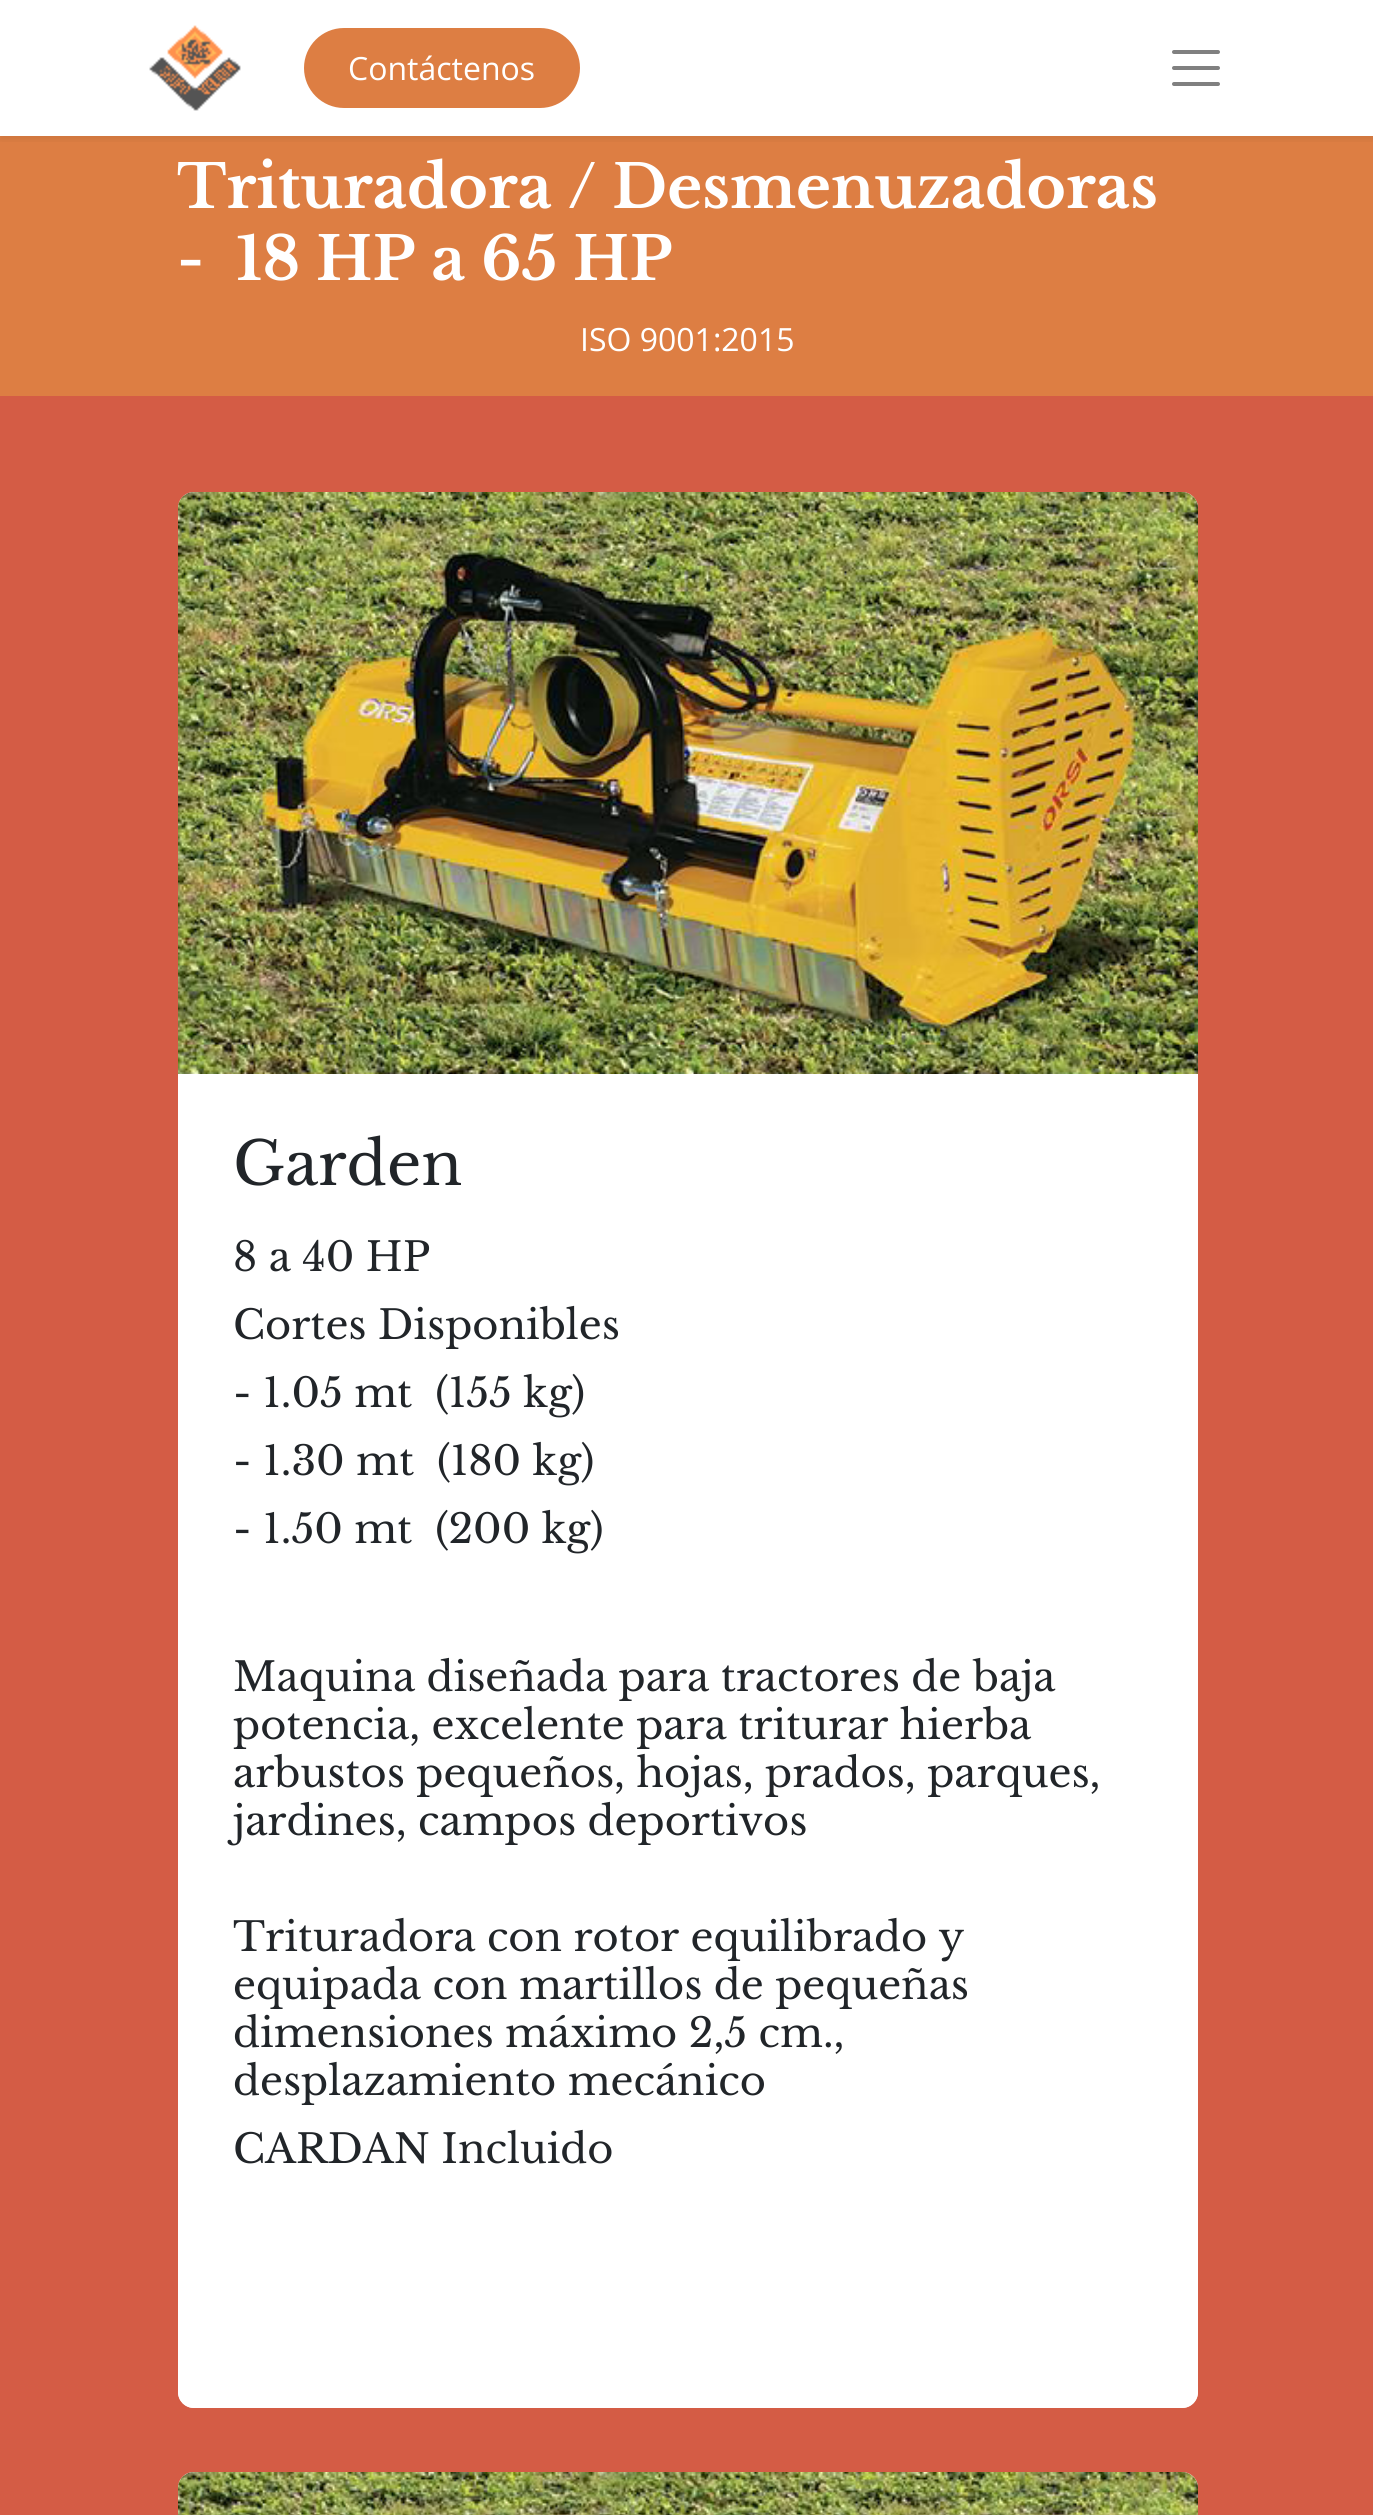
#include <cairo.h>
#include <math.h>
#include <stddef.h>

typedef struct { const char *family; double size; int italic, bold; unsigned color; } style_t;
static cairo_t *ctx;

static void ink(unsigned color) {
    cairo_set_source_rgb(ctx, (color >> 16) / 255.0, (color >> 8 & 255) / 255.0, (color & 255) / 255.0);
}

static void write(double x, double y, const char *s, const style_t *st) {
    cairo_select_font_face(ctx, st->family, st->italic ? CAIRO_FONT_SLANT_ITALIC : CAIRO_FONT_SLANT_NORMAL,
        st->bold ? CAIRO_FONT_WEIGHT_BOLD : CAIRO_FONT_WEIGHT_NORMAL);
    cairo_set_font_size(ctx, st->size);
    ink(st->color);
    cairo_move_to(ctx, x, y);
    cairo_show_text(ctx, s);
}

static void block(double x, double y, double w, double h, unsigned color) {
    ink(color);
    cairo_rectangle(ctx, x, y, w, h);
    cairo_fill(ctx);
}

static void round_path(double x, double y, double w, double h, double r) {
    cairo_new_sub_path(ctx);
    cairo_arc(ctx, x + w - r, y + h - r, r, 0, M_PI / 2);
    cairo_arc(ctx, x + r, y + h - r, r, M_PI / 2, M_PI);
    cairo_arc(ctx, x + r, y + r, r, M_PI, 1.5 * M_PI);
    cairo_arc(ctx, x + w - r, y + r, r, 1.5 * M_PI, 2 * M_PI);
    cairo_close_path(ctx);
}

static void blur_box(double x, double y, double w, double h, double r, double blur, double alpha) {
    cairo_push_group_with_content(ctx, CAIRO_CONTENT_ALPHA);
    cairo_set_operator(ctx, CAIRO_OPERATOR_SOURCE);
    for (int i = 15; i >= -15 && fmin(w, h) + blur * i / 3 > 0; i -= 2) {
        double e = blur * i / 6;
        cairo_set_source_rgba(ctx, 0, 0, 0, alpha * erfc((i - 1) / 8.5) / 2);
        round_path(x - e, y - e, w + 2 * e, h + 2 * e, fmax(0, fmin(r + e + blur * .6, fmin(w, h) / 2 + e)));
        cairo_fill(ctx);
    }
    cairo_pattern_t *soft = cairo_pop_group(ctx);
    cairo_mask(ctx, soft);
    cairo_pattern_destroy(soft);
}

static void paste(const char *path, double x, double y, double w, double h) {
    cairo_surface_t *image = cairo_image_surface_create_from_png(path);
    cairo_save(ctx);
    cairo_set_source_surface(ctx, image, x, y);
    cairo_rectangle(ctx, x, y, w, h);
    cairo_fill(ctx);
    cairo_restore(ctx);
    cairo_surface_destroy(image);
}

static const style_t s1 = {"Open Sans", 32, 0, 0, 0xffffff};
static const style_t s2 = {"Libre Baskerville", 59.75, 0, 1, 0xffffff};
static const style_t s3 = {"Libre Baskerville", 59.75, 0, 0, 0x212529};
static const style_t s4 = {"Libre Baskerville", 40, 0, 0, 0x212529};

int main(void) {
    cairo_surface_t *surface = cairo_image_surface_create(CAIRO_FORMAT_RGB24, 1373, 2515);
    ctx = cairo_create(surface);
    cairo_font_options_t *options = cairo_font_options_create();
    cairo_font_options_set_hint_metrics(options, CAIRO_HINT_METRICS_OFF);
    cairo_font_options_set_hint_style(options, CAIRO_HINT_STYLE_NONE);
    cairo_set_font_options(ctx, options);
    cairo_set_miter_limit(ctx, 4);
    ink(0xffffff);
    cairo_paint(ctx);
    block(0, 136, 1373, 260, 0xdd7e43);
    cairo_save(ctx);
    cairo_rectangle(ctx, 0, 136, 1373, 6);
    cairo_clip(ctx);
    ink(0x000000);
    blur_box(0, 4, 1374, 136, 0, 4, 0.07);
    cairo_restore(ctx);
    paste("pic1.png", 149, 25, 92, 86);
    round_path(305, 29, 274, 78, 39);
    cairo_fill_preserve(ctx);
    cairo_stroke(ctx);
    write(348, 80, "Contáctenos", &s1);
    cairo_new_path(ctx);
    cairo_move_to(ctx, 1174, 52);
    cairo_line_to(ctx, 1218, 52);
    cairo_move_to(ctx, 1174, 68);
    cairo_line_to(ctx, 1218, 68);
    cairo_move_to(ctx, 1174, 84);
    cairo_line_to(ctx, 1218, 84);
    ink(0x808080);
    cairo_set_line_width(ctx, 4);
    cairo_set_line_cap(ctx, CAIRO_LINE_CAP_ROUND);
    cairo_stroke(ctx);
    write(177, 208, "Trituradora / Desmenuzadoras", &s2);
    write(177, 280, "-  18 HP a 65 HP", &s2);
    write(580, 351, "ISO 9001:2015", &s1);
    block(0, 396, 1373, 2119, 0xd45c45);
    ink(0xffffff);
    round_path(178, 492, 1020, 1916, 16);
    cairo_fill(ctx);
    paste("pic2.png", 178, 492, 1020, 582);
    cairo_set_source_rgba(ctx, 1, 1, 1, 0.9);
    cairo_new_path(ctx);
    cairo_move_to(ctx, 178, 1074);
    cairo_line_to(ctx, 1198, 1074);
    cairo_line_to(ctx, 1198, 2392);
    cairo_curve_to(ctx, 1198, 2401, 1191, 2408, 1182, 2408);
    cairo_line_to(ctx, 194, 2408);
    cairo_curve_to(ctx, 185, 2408, 178, 2401, 178, 2392);
    cairo_close_path(ctx);
    cairo_fill(ctx);
    write(233, 1185, "Garden", &s3);
    write(233, 1271, "8 a 40 HP", &s4);
    write(233, 1339, "Cortes Disponibles", &s4);
    write(233, 1407, "- 1.05 mt  (155 kg)", &s4);
    write(233, 1475, "- 1.30 mt  (180 kg)", &s4);
    write(233, 1543, "- 1.50 mt  (200 kg)", &s4);
    write(233, 1691, "Maquina diseñada para tractores de baja", &s4);
    write(233, 1739, "potencia, excelente para triturar hierba", &s4);
    write(233, 1787, "arbustos pequeños, hojas, prados, parques,", &s4);
    write(233, 1835, "jardines, campos deportivos", &s4);
    write(233, 1951, "Trituradora con rotor equilibrado y", &s4);
    write(233, 1999, "equipada con martillos de pequeñas", &s4);
    write(233, 2047, "dimensiones máximo 2,5 cm.,", &s4);
    write(233, 2095, "desplazamiento mecánico", &s4);
    write(233, 2163, "CARDAN Incluido", &s4);
    ink(0xffffff);
    cairo_new_path(ctx);
    cairo_move_to(ctx, 194, 2472);
    cairo_line_to(ctx, 1182, 2472);
    cairo_curve_to(ctx, 1191, 2472, 1198, 2479, 1198, 2488);
    cairo_line_to(ctx, 1198, 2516);
    cairo_line_to(ctx, 178, 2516);
    cairo_line_to(ctx, 178, 2488);
    cairo_curve_to(ctx, 178, 2479, 185, 2472, 194, 2472);
    cairo_close_path(ctx);
    cairo_fill(ctx);
    paste("pic3.png", 178, 2472, 1020, 43);
    cairo_surface_write_to_png(surface, "screenshot.png");
    cairo_font_options_destroy(options);
    cairo_destroy(ctx);
    cairo_surface_destroy(surface);
    return 0;
}
